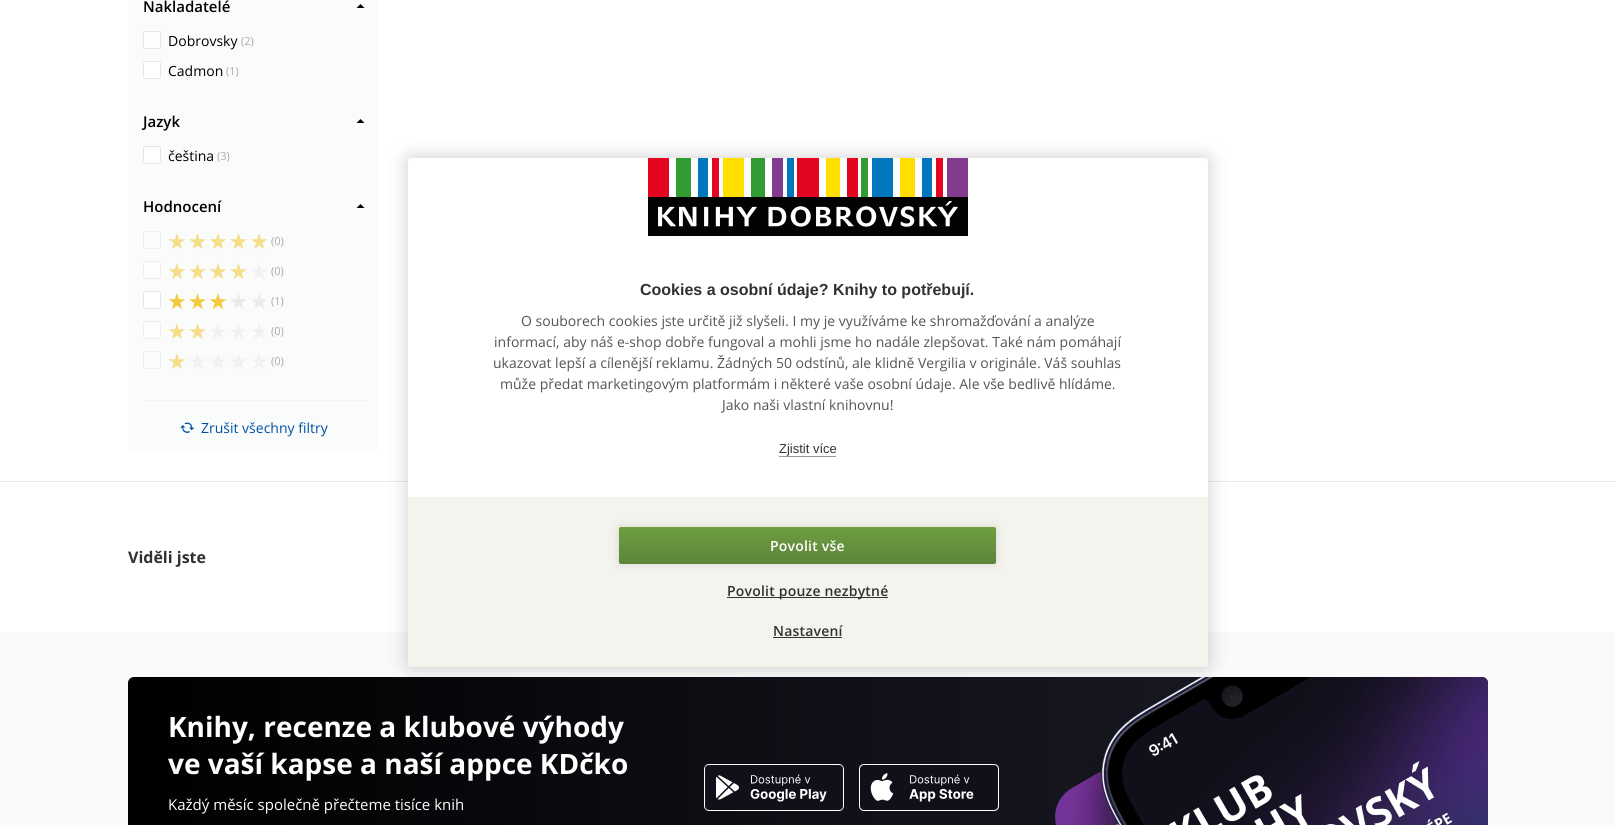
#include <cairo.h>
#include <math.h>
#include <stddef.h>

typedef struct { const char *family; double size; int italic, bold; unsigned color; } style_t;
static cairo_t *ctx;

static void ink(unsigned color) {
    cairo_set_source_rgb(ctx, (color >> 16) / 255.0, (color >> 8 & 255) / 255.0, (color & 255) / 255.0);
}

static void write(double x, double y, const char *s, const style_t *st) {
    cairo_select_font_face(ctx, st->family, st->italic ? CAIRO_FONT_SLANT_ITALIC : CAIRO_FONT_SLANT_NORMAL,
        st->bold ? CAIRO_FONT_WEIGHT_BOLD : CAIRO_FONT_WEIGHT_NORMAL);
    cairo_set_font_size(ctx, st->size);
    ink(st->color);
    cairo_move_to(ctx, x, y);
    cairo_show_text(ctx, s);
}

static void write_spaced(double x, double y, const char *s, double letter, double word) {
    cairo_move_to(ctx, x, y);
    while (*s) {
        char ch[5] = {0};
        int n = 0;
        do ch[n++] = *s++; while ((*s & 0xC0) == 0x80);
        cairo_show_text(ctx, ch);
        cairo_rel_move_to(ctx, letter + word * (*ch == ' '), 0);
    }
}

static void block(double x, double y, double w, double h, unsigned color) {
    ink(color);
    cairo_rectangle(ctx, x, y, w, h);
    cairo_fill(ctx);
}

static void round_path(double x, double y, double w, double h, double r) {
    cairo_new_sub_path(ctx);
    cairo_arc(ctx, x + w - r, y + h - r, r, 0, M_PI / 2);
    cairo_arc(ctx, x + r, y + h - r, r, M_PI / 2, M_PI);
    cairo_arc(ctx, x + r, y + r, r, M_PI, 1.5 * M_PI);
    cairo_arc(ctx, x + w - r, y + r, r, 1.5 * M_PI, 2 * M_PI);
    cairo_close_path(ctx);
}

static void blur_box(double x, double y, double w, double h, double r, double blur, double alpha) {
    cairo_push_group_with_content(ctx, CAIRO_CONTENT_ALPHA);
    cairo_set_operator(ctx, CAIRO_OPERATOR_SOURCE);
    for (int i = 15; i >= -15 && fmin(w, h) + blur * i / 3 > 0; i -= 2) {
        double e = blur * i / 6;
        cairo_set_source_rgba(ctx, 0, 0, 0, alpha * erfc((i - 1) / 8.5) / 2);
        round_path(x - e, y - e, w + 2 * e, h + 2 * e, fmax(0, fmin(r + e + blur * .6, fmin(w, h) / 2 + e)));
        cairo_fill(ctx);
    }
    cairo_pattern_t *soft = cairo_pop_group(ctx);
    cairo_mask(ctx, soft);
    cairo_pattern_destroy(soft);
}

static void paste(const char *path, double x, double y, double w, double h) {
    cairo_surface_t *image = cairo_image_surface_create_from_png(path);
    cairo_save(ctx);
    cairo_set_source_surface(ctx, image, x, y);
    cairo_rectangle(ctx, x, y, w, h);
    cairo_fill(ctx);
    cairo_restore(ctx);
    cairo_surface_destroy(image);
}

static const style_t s1 = {"Open Sans SemiBold", 15, 0, 0, 0x000000};
static const style_t s2 = {"Open Sans", 14, 0, 0, 0x000000};
static const style_t s3 = {"Open Sans", 11, 0, 0, 0xa8a9a9};
static const style_t s4 = {"Open Sans", 14, 0, 0, 0x0151a1};
static const style_t s5 = {"Open Sans", 16, 0, 1, 0x313131};
static const style_t s6 = {"Open Sans", 28, 0, 1, 0xffffff};
static const style_t s7 = {"Open Sans", 15, 0, 0, 0xffffff};
static const style_t s8 = {"Liberation Sans", 16, 0, 1, 0x313131};
static const style_t s9 = {"Open Sans", 14, 0, 0, 0x555555};
static const style_t s10 = {"Liberation Sans", 13, 0, 0, 0x313131};

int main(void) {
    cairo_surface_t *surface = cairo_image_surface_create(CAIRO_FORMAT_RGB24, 1615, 825);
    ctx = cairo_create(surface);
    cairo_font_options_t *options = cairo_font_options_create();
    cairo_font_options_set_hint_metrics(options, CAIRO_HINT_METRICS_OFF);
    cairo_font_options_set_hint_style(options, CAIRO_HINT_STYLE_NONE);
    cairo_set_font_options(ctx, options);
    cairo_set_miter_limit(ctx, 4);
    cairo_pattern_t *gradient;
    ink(0xffffff);
    cairo_paint(ctx);
    ink(0xfafbfb);
    round_path(128, -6, 251, 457, 6);
    cairo_fill(ctx);
    write(143, 12, "Nakladatelé", &s1);
    cairo_new_path(ctx);
    cairo_move_to(ctx, 364.5, 8);
    cairo_line_to(ctx, 356.5, 8);
    cairo_line_to(ctx, 360.5, 4);
    cairo_close_path(ctx);
    cairo_fill(ctx);
    ink(0xffffff);
    round_path(143.5, 31.5, 17, 17, 2.5);
    cairo_fill_preserve(ctx);
    ink(0xe5e5e5);
    cairo_set_line_width(ctx, 1);
    cairo_stroke(ctx);
    write(168, 46, "Dobrovsky", &s2);
    write(241, 45, "(2)", &s3);
    ink(0xffffff);
    round_path(143.5, 61.5, 17, 17, 2.5);
    cairo_fill_preserve(ctx);
    ink(0xe5e5e5);
    cairo_stroke(ctx);
    write(168, 76, "Cadmon", &s2);
    write(226, 75, "(1)", &s3);
    write(143, 127, "Jazyk", &s1);
    cairo_new_path(ctx);
    cairo_move_to(ctx, 364.5, 123);
    cairo_line_to(ctx, 356.5, 123);
    cairo_line_to(ctx, 360.5, 119);
    cairo_close_path(ctx);
    cairo_fill(ctx);
    ink(0xffffff);
    round_path(143.5, 146.5, 17, 17, 2.5);
    cairo_fill_preserve(ctx);
    ink(0xe5e5e5);
    cairo_stroke(ctx);
    write(168, 161, "čeština", &s2);
    write(217, 160, "(3)", &s3);
    write(143, 212, "Hodnocení", &s1);
    cairo_new_path(ctx);
    cairo_move_to(ctx, 364.5, 208);
    cairo_line_to(ctx, 356.5, 208);
    cairo_line_to(ctx, 360.5, 204);
    cairo_close_path(ctx);
    cairo_fill(ctx);
    ink(0xfdfdfd);
    round_path(143.5, 231.5, 17, 17, 2.5);
    cairo_fill_preserve(ctx);
    ink(0xedeeee);
    cairo_stroke(ctx);
    paste("pic1.png", 168, 233, 100, 17);
    write(271, 245, "(0)", &s3);
    ink(0xfdfdfd);
    round_path(143.5, 261.5, 17, 17, 2.5);
    cairo_fill_preserve(ctx);
    ink(0xedeeee);
    cairo_stroke(ctx);
    paste("pic2.png", 168, 263, 99, 17);
    write(271, 275, "(0)", &s3);
    ink(0xffffff);
    round_path(143.5, 291.5, 17, 17, 2.5);
    cairo_fill_preserve(ctx);
    ink(0xe5e5e5);
    cairo_stroke(ctx);
    paste("pic3.png", 168, 293, 99, 17);
    write(271, 305, "(1)", &s3);
    ink(0xfdfdfd);
    round_path(143.5, 321.5, 17, 17, 2.5);
    cairo_fill_preserve(ctx);
    ink(0xedeeee);
    cairo_stroke(ctx);
    paste("pic4.png", 168, 323, 99, 16);
    write(271, 335, "(0)", &s3);
    ink(0xfdfdfd);
    round_path(143.5, 351.5, 17, 17, 2.5);
    cairo_fill_preserve(ctx);
    ink(0xedeeee);
    cairo_stroke(ctx);
    paste("pic5.png", 168, 353, 99, 16);
    write(271, 365, "(0)", &s3);
    block(144, 400, 224, 1, 0xf4f3ee);
    paste("pic6.png", 180, 422, 14, 11);
    write(201, 433, "Zrušit všechny filtry", &s4);
    block(0, 481, 1615, 1, 0xe7eaec);
    write(128, 563, "Viděli jste", &s5);
    block(0, 632, 1615, 193, 0xfafafa);
    gradient = cairo_pattern_create_linear(128, 787, 1488, 787);
    cairo_pattern_add_color_stop_rgba(gradient, 0, 0, 0, 0, 1);
    cairo_pattern_add_color_stop_rgba(gradient, 1, 0.118, 0.118, 0.176, 1);
    cairo_set_source(ctx, gradient);
    cairo_pattern_destroy(gradient);
    round_path(128, 677, 1360, 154, 6);
    cairo_fill(ctx);
    write(168, 737, "Knihy, recenze a klubové výhody", &s6);
    write(168, 774, "ve vaší kapse a naší appce KDčko", &s6);
    write(168, 810, "Každý měsíc společně přečteme tisíce knih", &s7);
    paste("pic7.png", 704, 764, 140, 47);
    paste("pic8.png", 859, 764, 140, 47);
    paste("pic9.png", 1055, 677, 433, 148);
    ink(0x000000);
    blur_box(408, 158, 800, 509, 3, 10, 0.2);
    ink(0xffffff);
    round_path(408, 158, 800, 509, 3);
    cairo_fill(ctx);
    paste("pic10.png", 648, 158, 320, 78);
    write(640, 295, "Cookies a osobní údaje? Knihy to potřebují.", &s8);
    write(521, 326, "O souborech cookies jste určitě již slyšeli. I my je využíváme ke shromažďování a analýze", &s9);
    write(494, 347, "informací, aby náš e-shop dobře fungoval a mohli jsme ho nadále zlepšovat. Také nám pomáhají", &s9);
    write(493, 368, "ukazovat lepší a cílenější reklamu. Žádných 50 odstínů, ale klidně Vergilia v originále. Váš souhlas", &s9);
    write(500, 389, "může předat marketingovým platformám i některé vaše osobní údaje. Ale vše bedlivě hlídáme.", &s9);
    write(722, 410, "Jako naši vlastní knihovnu!", &s9);
    write(779, 453, "Zjistit více", &s10);
    block(779, 456, 57, 1, 0x999999);
    ink(0xf4f3ed);
    cairo_new_path(ctx);
    cairo_move_to(ctx, 408, 497);
    cairo_line_to(ctx, 1208, 497);
    cairo_line_to(ctx, 1208, 664);
    cairo_curve_to(ctx, 1208, 665.5, 1206.5, 667, 1205, 667);
    cairo_line_to(ctx, 411, 667);
    cairo_curve_to(ctx, 409.5, 667, 408, 665.5, 408, 664);
    cairo_close_path(ctx);
    cairo_fill(ctx);
    ink(0x000000);
    blur_box(619, 527, 377, 37, 2, 5, 0.12);
    gradient = cairo_pattern_create_linear(808, 527, 808, 564);
    cairo_pattern_add_color_stop_rgba(gradient, 0, 0.431, 0.62, 0.247, 1);
    cairo_pattern_add_color_stop_rgba(gradient, 1, 0.365, 0.518, 0.235, 1);
    cairo_set_source(ctx, gradient);
    cairo_pattern_destroy(gradient);
    round_path(619, 527, 377, 37, 2);
    cairo_fill(ctx);
    cairo_select_font_face(ctx, "Open Sans SemiBold", CAIRO_FONT_SLANT_NORMAL, CAIRO_FONT_WEIGHT_NORMAL);
    cairo_set_font_size(ctx, 14);
    ink(0xffffff);
    write_spaced(770, 551, "Povolit vše", 0.2, 0);
    block(727, 597, 161, 1, 0x333333);
    ink(0x313131);
    write_spaced(727, 596, "Povolit pouze nezbytné", 0.2, 0);
    write_spaced(773, 636, "Nastavení", 0.2, 0);
    block(773, 637, 69, 1, 0x333333);
    cairo_surface_write_to_png(surface, "screenshot.png");
    cairo_font_options_destroy(options);
    cairo_destroy(ctx);
    cairo_surface_destroy(surface);
    return 0;
}
